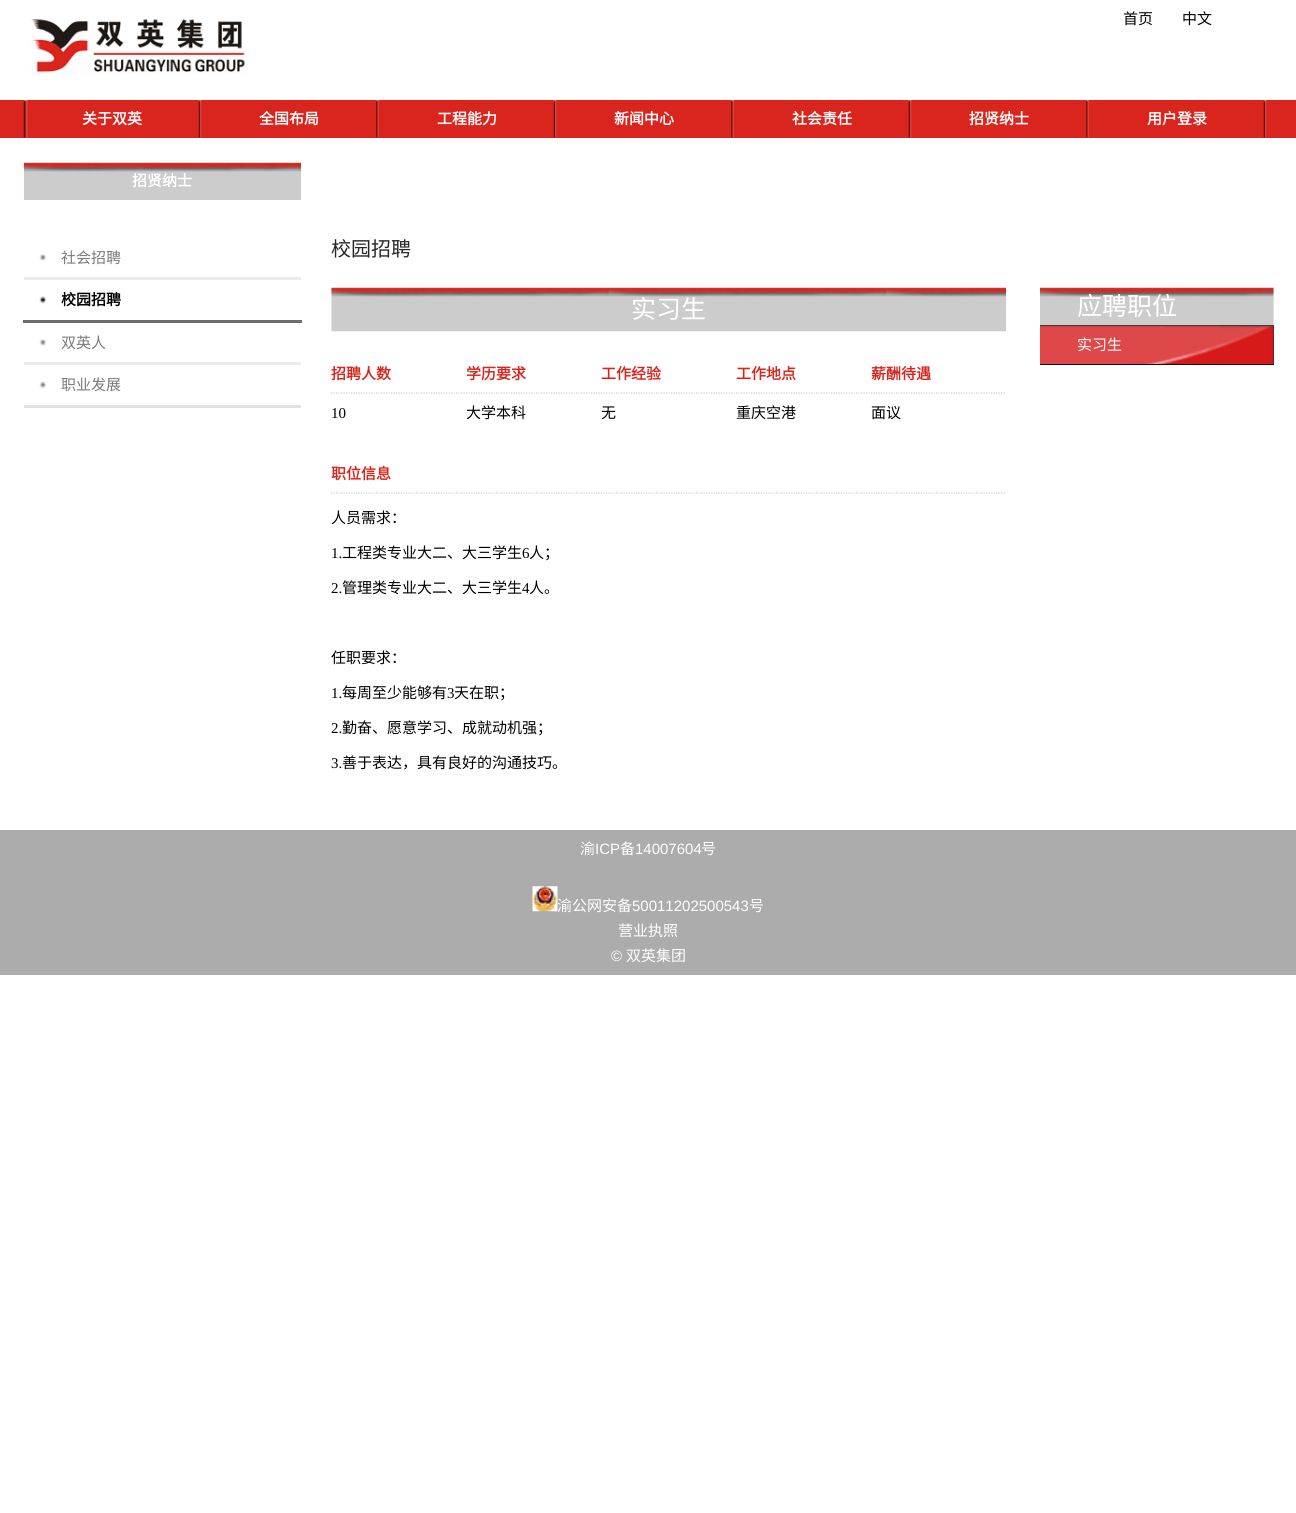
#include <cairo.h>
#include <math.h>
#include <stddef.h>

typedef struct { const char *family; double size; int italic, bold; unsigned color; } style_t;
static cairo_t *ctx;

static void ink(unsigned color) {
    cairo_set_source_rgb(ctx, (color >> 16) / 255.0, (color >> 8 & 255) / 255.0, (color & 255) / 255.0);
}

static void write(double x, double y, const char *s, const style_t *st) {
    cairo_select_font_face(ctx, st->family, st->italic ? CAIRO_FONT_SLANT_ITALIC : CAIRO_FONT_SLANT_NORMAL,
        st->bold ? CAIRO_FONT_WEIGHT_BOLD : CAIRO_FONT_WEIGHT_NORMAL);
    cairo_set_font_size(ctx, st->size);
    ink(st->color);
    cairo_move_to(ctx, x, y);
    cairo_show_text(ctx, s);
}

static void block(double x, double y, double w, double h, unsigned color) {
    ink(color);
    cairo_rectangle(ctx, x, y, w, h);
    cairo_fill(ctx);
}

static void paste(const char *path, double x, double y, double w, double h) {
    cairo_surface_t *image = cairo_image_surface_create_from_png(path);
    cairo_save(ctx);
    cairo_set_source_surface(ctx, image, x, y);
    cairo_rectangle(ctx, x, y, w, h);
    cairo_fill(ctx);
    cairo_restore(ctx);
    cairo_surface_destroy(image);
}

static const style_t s1 = {"Noto Sans CJK SC", 15, 0, 0, 0x000000};
static const style_t s2 = {"Noto Sans CJK SC", 15, 0, 1, 0xffffff};
static const style_t s3 = {"Noto Sans CJK SC", 15, 0, 0, 0x7a7a7a};
static const style_t s4 = {"Noto Sans CJK SC", 15, 0, 1, 0x000000};
static const style_t s5 = {"Noto Sans CJK SC", 20, 0, 0, 0x272727};
static const style_t s6 = {"Noto Sans CJK SC", 25, 0, 0, 0xffffff};
static const style_t s7 = {"Noto Sans CJK SC", 15, 0, 1, 0xda251d};
static const style_t s8 = {"Liberation Serif", 15, 0, 0, 0x000000};
static const style_t s9 = {"Noto Sans CJK SC", 15, 0, 0, 0xffffff};
static const style_t s10 = {"Liberation Sans", 15, 0, 0, 0xffffff};

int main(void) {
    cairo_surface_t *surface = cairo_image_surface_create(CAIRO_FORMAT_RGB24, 1296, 1513);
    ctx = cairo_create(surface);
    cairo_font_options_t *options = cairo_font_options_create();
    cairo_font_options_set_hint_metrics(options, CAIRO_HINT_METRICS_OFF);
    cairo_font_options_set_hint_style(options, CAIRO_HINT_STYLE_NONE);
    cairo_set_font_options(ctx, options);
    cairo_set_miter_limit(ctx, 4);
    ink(0xffffff);
    cairo_paint(ctx);
    block(0, 100, 1296, 38, 0xda251e);
    paste("pic1.png", 31, 19, 217, 55);
    write(1123, 24, "首页", &s1);
    write(1182, 24, "中文", &s1);
    paste("pic2.png", 23, 100, 5, 38);
    paste("pic3.png", 198, 100, 4, 38);
    write(82, 124, "关于双英", &s2);
    paste("pic4.png", 376, 100, 3, 38);
    write(259, 124, "全国布局", &s2);
    paste("pic3.png", 553, 100, 4, 38);
    write(437, 124, "工程能力", &s2);
    paste("pic4.png", 731, 100, 3, 38);
    write(614, 124, "新闻中心", &s2);
    paste("pic3.png", 908, 100, 4, 38);
    write(792, 124, "社会责任", &s2);
    paste("pic4.png", 1086, 100, 3, 38);
    write(969, 124, "招贤纳士", &s2);
    paste("pic3.png", 1263, 100, 4, 38);
    write(1147, 124, "用户登录", &s2);
    paste("pic5.png", 23, 162, 279, 38);
    write(132, 186, "招贤纳士", &s2);
    block(24, 277, 277, 3, 0xececec);
    paste("pic6.png", 39, 254, 8, 7);
    write(61, 263, "社会招聘", &s3);
    block(23, 320, 279, 3, 0x6d6d6d);
    paste("pic7.png", 39, 296, 8, 8);
    write(61, 305, "校园招聘", &s4);
    block(24, 362, 277, 3, 0xececec);
    paste("pic6.png", 39, 339, 8, 7);
    write(61, 348, "双英人", &s3);
    block(24, 405, 277, 3, 0xe2e2e2);
    paste("pic8.png", 39, 381, 8, 8);
    write(61, 390, "职业发展", &s3);
    write(331, 256, "校园招聘", &s5);
    paste("pic9.png", 331, 287, 676, 45);
    write(631, 318, "实习生", &s6);
    cairo_new_path(ctx);
    cairo_move_to(ctx, 331, 393);
    cairo_line_to(ctx, 466, 393);
    ink(0xcccccc);
    cairo_set_line_width(ctx, 1.2);
    cairo_set_dash(ctx, (double[]){1.25, 1.25}, 2, 0);
    cairo_stroke(ctx);
    write(331, 379, "招聘人数", &s7);
    cairo_new_path(ctx);
    cairo_move_to(ctx, 466, 393);
    cairo_line_to(ctx, 601, 393);
    ink(0xcccccc);
    cairo_stroke(ctx);
    write(466, 379, "学历要求", &s7);
    cairo_new_path(ctx);
    cairo_move_to(ctx, 601, 393);
    cairo_line_to(ctx, 736, 393);
    ink(0xcccccc);
    cairo_stroke(ctx);
    write(601, 379, "工作经验", &s7);
    cairo_new_path(ctx);
    cairo_move_to(ctx, 736, 393);
    cairo_line_to(ctx, 871, 393);
    ink(0xcccccc);
    cairo_stroke(ctx);
    write(736, 379, "工作地点", &s7);
    cairo_new_path(ctx);
    cairo_move_to(ctx, 871, 393);
    cairo_line_to(ctx, 1006, 393);
    ink(0xcccccc);
    cairo_stroke(ctx);
    write(871, 379, "薪酬待遇", &s7);
    write(331, 418, "10", &s8);
    write(466, 418, "大学本科", &s1);
    write(601, 418, "无", &s1);
    write(736, 418, "重庆空港", &s1);
    write(871, 418, "面议", &s1);
    cairo_new_path(ctx);
    cairo_move_to(ctx, 331, 493);
    cairo_line_to(ctx, 1006, 493);
    ink(0xcccccc);
    cairo_stroke(ctx);
    write(331, 479, "职位信息", &s7);
    write(331, 523, "人员需求：", &s1);
    write(331, 558, "1.", &s8);
    write(342, 558, "工程类专业大二、大三学生", &s1);
    write(522, 558, "6", &s8);
    write(529, 558, "人；", &s1);
    write(331, 593, "2.", &s8);
    write(342, 593, "管理类专业大二、大三学生", &s1);
    write(522, 593, "4", &s8);
    write(529, 593, "人。", &s1);
    write(331, 663, "任职要求：", &s1);
    write(331, 698, "1.", &s8);
    write(342, 698, "每周至少能够有", &s1);
    write(447, 698, "3", &s8);
    write(454, 698, "天在职；", &s1);
    write(331, 733, "2.", &s8);
    write(342, 733, "勤奋、愿意学习、成就动机强；", &s1);
    write(331, 768, "3.", &s8);
    write(342, 768, "善于表达，具有良好的沟通技巧。", &s1);
    paste("pic10.png", 1040, 287, 234, 38);
    write(1077, 315, "应聘职位", &s6);
    block(1273, 326, 1, 38, 0x272727);
    paste("pic11.png", 1040, 326, 234, 38);
    block(1040, 325, 234, 1, 0x3e3e3e);
    block(1040, 364, 234, 1, 0x101010);
    write(1077, 350, "实习生", &s9);
    block(0, 830, 1296, 145, 0xacacac);
    write(580, 854, "渝", &s9);
    write(595, 854, "ICP", &s10);
    write(620, 854, "备", &s9);
    write(635, 854, "14007604", &s10);
    write(701, 854, "号", &s9);
    paste("pic12.png", 532, 886, 26, 26);
    write(557, 911, "渝公网安备", &s9);
    write(632, 911, "50011202500543", &s10);
    write(749, 911, "号", &s9);
    write(618, 936, "营业执照", &s9);
    write(611, 961, "©", &s10);
    write(626, 961, "双英集团", &s9);
    cairo_surface_write_to_png(surface, "screenshot.png");
    cairo_font_options_destroy(options);
    cairo_destroy(ctx);
    cairo_surface_destroy(surface);
    return 0;
}
